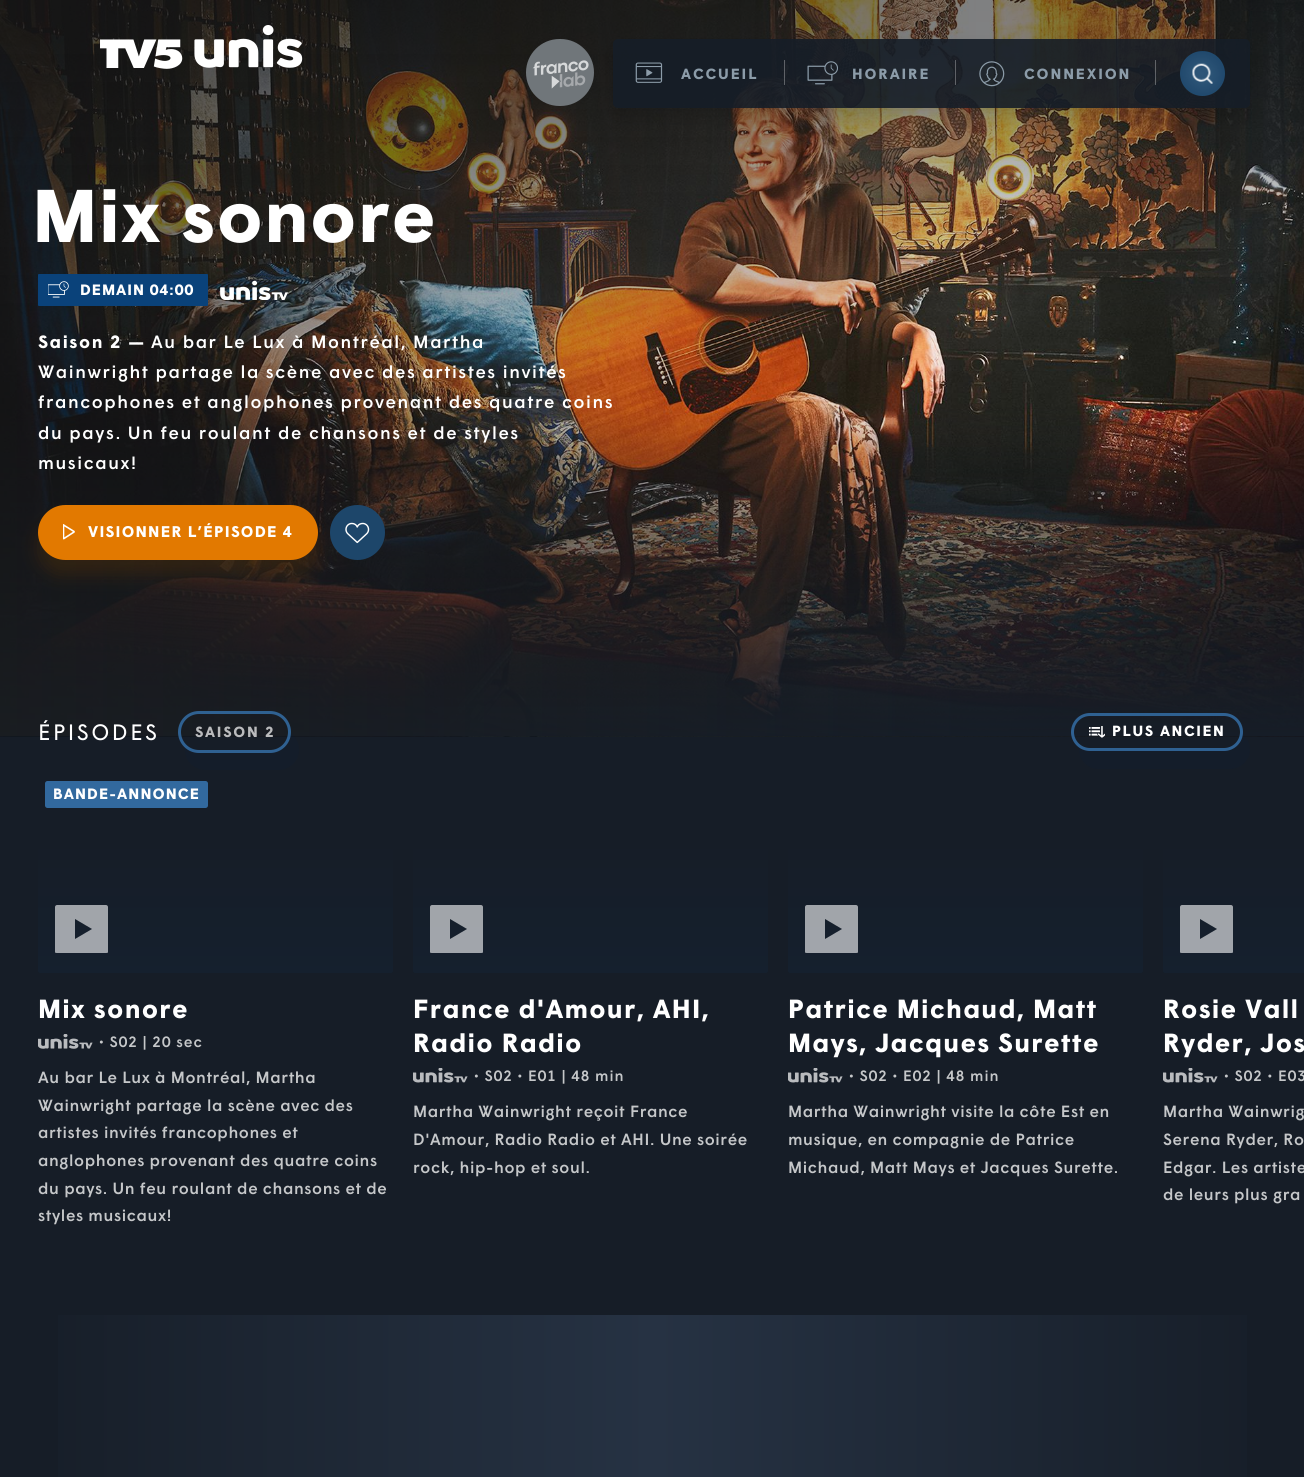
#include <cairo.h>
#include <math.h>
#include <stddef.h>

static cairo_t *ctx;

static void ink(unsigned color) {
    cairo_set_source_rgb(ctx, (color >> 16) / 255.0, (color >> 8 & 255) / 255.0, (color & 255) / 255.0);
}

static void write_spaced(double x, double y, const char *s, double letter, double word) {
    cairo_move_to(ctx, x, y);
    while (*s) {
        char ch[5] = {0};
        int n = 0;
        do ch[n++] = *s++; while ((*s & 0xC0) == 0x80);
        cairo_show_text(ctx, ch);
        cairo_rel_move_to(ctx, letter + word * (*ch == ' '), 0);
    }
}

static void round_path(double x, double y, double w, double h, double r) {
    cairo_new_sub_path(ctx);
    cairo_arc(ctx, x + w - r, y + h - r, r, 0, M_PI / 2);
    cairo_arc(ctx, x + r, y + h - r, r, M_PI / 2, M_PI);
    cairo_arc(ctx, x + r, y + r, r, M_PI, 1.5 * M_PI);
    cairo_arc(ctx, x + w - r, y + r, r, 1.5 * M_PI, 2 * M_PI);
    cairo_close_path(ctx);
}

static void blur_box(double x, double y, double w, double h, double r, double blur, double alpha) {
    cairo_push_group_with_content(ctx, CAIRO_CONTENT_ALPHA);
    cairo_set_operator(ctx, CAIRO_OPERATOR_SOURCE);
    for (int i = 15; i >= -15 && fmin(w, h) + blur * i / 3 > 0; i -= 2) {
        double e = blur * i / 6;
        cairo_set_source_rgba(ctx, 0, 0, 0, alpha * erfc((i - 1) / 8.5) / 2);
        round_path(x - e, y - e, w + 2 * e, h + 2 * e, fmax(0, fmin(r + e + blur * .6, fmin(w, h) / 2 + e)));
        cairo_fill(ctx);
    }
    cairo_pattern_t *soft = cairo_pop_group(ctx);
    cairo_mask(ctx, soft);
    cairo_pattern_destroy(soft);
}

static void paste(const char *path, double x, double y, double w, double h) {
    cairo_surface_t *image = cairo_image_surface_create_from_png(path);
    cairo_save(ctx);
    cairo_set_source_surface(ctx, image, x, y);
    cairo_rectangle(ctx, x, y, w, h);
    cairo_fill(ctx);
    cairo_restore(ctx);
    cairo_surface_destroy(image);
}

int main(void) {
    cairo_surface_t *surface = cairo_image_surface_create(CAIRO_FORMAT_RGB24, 1304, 1477);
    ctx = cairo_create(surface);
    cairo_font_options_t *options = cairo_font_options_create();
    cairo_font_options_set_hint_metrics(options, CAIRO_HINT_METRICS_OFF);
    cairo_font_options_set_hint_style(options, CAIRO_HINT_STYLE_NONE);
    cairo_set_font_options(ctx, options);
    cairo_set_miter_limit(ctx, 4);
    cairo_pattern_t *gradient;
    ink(0x161d27);
    cairo_paint(ctx);
    paste("pic7.png", 0, 0, 1304, 737);
    paste("pic1.png", 100, 25, 203, 44);
    ink(0x70767a);
    round_path(526, 39, 68, 67, 33.5);
    cairo_fill(ctx);
    paste("pic2.png", 532, 60, 57, 29);
    cairo_save(ctx);
    cairo_set_fill_rule(ctx, CAIRO_FILL_RULE_EVEN_ODD);
    cairo_new_path(ctx);
    cairo_move_to(ctx, 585, 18);
    cairo_line_to(ctx, 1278, 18);
    cairo_line_to(ctx, 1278, 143);
    cairo_line_to(ctx, 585, 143);
    cairo_close_path(ctx);
    cairo_move_to(ctx, 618, 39);
    cairo_line_to(ctx, 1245, 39);
    cairo_curve_to(ctx, 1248, 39, 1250, 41, 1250, 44);
    cairo_line_to(ctx, 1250, 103);
    cairo_curve_to(ctx, 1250, 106, 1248, 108, 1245, 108);
    cairo_line_to(ctx, 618, 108);
    cairo_curve_to(ctx, 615, 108, 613, 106, 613, 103);
    cairo_line_to(ctx, 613, 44);
    cairo_curve_to(ctx, 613, 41, 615, 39, 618, 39);
    cairo_close_path(ctx);
    cairo_clip(ctx);
    ink(0x000000);
    blur_box(613, 46, 637, 69, 5, 9, 0.12);
    cairo_restore(ctx);
    cairo_set_source_rgba(ctx, 0.086, 0.114, 0.153, 0.9);
    round_path(613, 39, 637, 69, 5);
    cairo_fill(ctx);
    paste("pic3.png", 635, 62, 28, 21);
    cairo_select_font_face(ctx, "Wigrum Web", CAIRO_FONT_SLANT_NORMAL, CAIRO_FONT_WEIGHT_BOLD);
    cairo_set_font_size(ctx, 14.75);
    ink(0x8c9ca9);
    write_spaced(681, 79, "ACCUEIL", 1.9, 0);
    cairo_set_source_rgba(ctx, 1, 1, 1, 0.3);
    cairo_rectangle(ctx, 784, 60, 1, 25);
    cairo_fill(ctx);
    paste("pic4.png", 807, 61, 31, 24);
    ink(0x8c9ca9);
    write_spaced(852, 79, "HORAIRE", 1.9, 0);
    cairo_set_source_rgba(ctx, 1, 1, 1, 0.3);
    cairo_rectangle(ctx, 955, 60, 1, 25);
    cairo_fill(ctx);
    paste("pic5.png", 979, 61, 26, 26);
    ink(0x8c9ca9);
    write_spaced(1024, 79, "CONNEXION", 1.9, 0);
    cairo_set_source_rgba(ctx, 1, 1, 1, 0.3);
    cairo_rectangle(ctx, 1155, 60, 1, 25);
    cairo_fill(ctx);
    ink(0x1d466a);
    cairo_arc(ctx, 1202.5, 73.5, 22.5, 0, 2 * M_PI);
    cairo_fill(ctx);
    paste("pic6.png", 1180, 52, 45, 44);
    cairo_set_font_size(ctx, 74.5);
    ink(0xffffff);
    write_spaced(32, 242, "Mix sonore", 1.25, 0);
    ink(0x0a427a);
    round_path(38, 274, 170, 32, 1);
    cairo_fill(ctx);
    paste("pic8.png", 48, 281, 21, 17);
    cairo_set_font_size(ctx, 15);
    ink(0xffffff);
    write_spaced(80, 295, "DEMAIN 04:00", 1, 0);
    paste("pic9.png", 220, 280, 68, 20);
    cairo_set_font_size(ctx, 17.8);
    write_spaced(38, 348, "Saison 2 —", 1.57, 0);
    cairo_select_font_face(ctx, "Wigrum Web Medium", CAIRO_FONT_SLANT_NORMAL, CAIRO_FONT_WEIGHT_NORMAL);
    write_spaced(151, 348, "Au bar Le Lux à Montréal, Martha", 1.57, 0);
    write_spaced(38, 378, "Wainwright partage la scène avec des artistes invités", 1.57, 0);
    write_spaced(38, 408, "francophones et anglophones provenant des quatre coins", 1.57, 0);
    write_spaced(38, 439, "du pays. Un feu roulant de chansons et de styles", 1.57, 0);
    write_spaced(38, 469, "musicaux!", 1.57, 0);
    ink(0x6f3b00);
    blur_box(38, 520, 280, 55, 27.5, 9, 0.3);
    ink(0xe27900);
    round_path(38, 505, 280, 55, 27.5);
    cairo_fill(ctx);
    cairo_save(ctx);
    cairo_rectangle(ctx, 63, 524, 12, 16);
    cairo_clip(ctx);
    cairo_new_path(ctx);
    cairo_move_to(ctx, 74, 531.5);
    cairo_line_to(ctx, 63.5, 525);
    cairo_line_to(ctx, 63.5, 525.5);
    cairo_line_to(ctx, 63.5, 538.5);
    cairo_line_to(ctx, 64, 538.5);
    cairo_line_to(ctx, 74, 532);
    cairo_close_path(ctx);
    ink(0xffffff);
    cairo_set_line_width(ctx, 1.6);
    cairo_stroke(ctx);
    cairo_restore(ctx);
    cairo_select_font_face(ctx, "Wigrum Web", CAIRO_FONT_SLANT_NORMAL, CAIRO_FONT_WEIGHT_BOLD);
    cairo_set_font_size(ctx, 15.5);
    ink(0xffffff);
    write_spaced(88, 537, "VISIONNER L’ÉPISODE 4", 1.25, 0);
    ink(0x1d466a);
    cairo_new_path(ctx);
    cairo_arc(ctx, 357.5, 532.5, 27.5, 0, 2 * M_PI);
    cairo_fill(ctx);
    paste("pic10.png", 345, 522, 25, 22);
    cairo_select_font_face(ctx, "Wigrum Web", CAIRO_FONT_SLANT_NORMAL, CAIRO_FONT_WEIGHT_NORMAL);
    cairo_set_font_size(ctx, 22.25);
    ink(0xffffff);
    write_spaced(38, 740, "ÉPISODES", 2.5, 0);
    cairo_set_source_rgba(ctx, 0.008, 0.141, 0.259, 0.11);
    cairo_new_path(ctx);
    cairo_move_to(ctx, 185, 748);
    cairo_line_to(ctx, 185, 750);
    cairo_curve_to(ctx, 185, 761, 194, 770, 206, 770);
    cairo_line_to(ctx, 278, 770);
    cairo_curve_to(ctx, 290, 770, 299, 761, 299, 750);
    cairo_curve_to(ctx, 299, 743, 296, 737, 291, 733);
    cairo_curve_to(ctx, 290, 744, 282, 752, 271, 752);
    cairo_line_to(ctx, 198, 752);
    cairo_curve_to(ctx, 193, 752, 189, 751, 185, 748);
    cairo_close_path(ctx);
    cairo_fill(ctx);
    round_path(179.5, 712.5, 110, 39, 19.5);
    cairo_set_source_rgba(ctx, 0.196, 0.412, 0.62, 0.9);
    cairo_set_line_width(ctx, 3);
    cairo_stroke(ctx);
    cairo_select_font_face(ctx, "Wigrum Web", CAIRO_FONT_SLANT_NORMAL, CAIRO_FONT_WEIGHT_BOLD);
    cairo_set_font_size(ctx, 14.75);
    ink(0xbabbbd);
    write_spaced(195, 737, "SAISON 2", 1.75, 0);
    cairo_set_source_rgba(ctx, 0.008, 0.141, 0.259, 0.11);
    cairo_new_path(ctx);
    cairo_move_to(ctx, 1079, 747);
    cairo_line_to(ctx, 1079, 750);
    cairo_curve_to(ctx, 1079, 760, 1088, 769, 1098, 769);
    cairo_line_to(ctx, 1230, 769);
    cairo_curve_to(ctx, 1241, 769, 1250, 760, 1250, 750);
    cairo_curve_to(ctx, 1250, 743, 1247, 738, 1242, 734);
    cairo_curve_to(ctx, 1241, 744, 1233, 751, 1223, 751);
    cairo_line_to(ctx, 1091, 751);
    cairo_curve_to(ctx, 1086, 751, 1082, 750, 1079, 747);
    cairo_close_path(ctx);
    cairo_fill(ctx);
    round_path(1072.5, 714.5, 169, 35, 17.5);
    cairo_set_source_rgba(ctx, 0.196, 0.412, 0.62, 0.9);
    cairo_stroke(ctx);
    paste("pic11.png", 1089, 726, 16, 12);
    ink(0xffffff);
    write_spaced(1112, 736, "PLUS ANCIEN", 1.6, 0);
    ink(0x32699e);
    round_path(45, 781, 163, 27, 2.5);
    cairo_fill(ctx);
    cairo_set_font_size(ctx, 15);
    ink(0xffffff);
    write_spaced(53, 799, "BANDE-ANNONCE", 1.1, 0);
    gradient = cairo_pattern_create_linear(215, 974, 215, 839);
    cairo_pattern_add_color_stop_rgba(gradient, 0, 0.082, 0.125, 0.18, 1);
    cairo_pattern_add_color_stop_rgba(gradient, 1, 0.086, 0.114, 0.153, 1);
    cairo_set_source(ctx, gradient);
    cairo_pattern_destroy(gradient);
    cairo_new_path(ctx);
    cairo_move_to(ctx, 38, 839);
    cairo_line_to(ctx, 393, 839);
    cairo_line_to(ctx, 393, 970.5);
    cairo_curve_to(ctx, 393, 972, 392, 973, 390.5, 973);
    cairo_line_to(ctx, 40.5, 973);
    cairo_curve_to(ctx, 39, 973, 38, 972, 38, 970.5);
    cairo_close_path(ctx);
    cairo_fill(ctx);
    cairo_set_source_rgba(ctx, 1, 1, 1, 0.6);
    cairo_new_path(ctx);
    cairo_move_to(ctx, 55, 907);
    cairo_curve_to(ctx, 55, 906, 56, 905, 57, 905);
    cairo_line_to(ctx, 106, 905);
    cairo_curve_to(ctx, 107, 905, 108, 906, 108, 907);
    cairo_line_to(ctx, 108, 952);
    cairo_curve_to(ctx, 108, 953, 107, 953, 106, 953);
    cairo_line_to(ctx, 57, 953);
    cairo_curve_to(ctx, 56, 953, 55, 953, 55, 952);
    cairo_close_path(ctx);
    cairo_move_to(ctx, 75, 939);
    cairo_line_to(ctx, 92, 929);
    cairo_line_to(ctx, 75, 919);
    cairo_close_path(ctx);
    cairo_fill(ctx);
    cairo_set_font_size(ctx, 26.25);
    ink(0xffffff);
    write_spaced(38, 1018, "Mix sonore", 1.25, 0);
    paste("pic12.png", 38, 1034, 55, 15);
    cairo_select_font_face(ctx, "Wigrum Web Medium", CAIRO_FONT_SLANT_NORMAL, CAIRO_FONT_WEIGHT_NORMAL);
    cairo_set_font_size(ctx, 15);
    ink(0xc5c7c9);
    write_spaced(99, 1047, "• S02 | 20 sec", 1, 0);
    cairo_set_font_size(ctx, 16.25);
    write_spaced(38, 1083, "Au bar Le Lux à Montréal, Martha", 0.6, 0);
    write_spaced(38, 1111, "Wainwright partage la scène avec des", 0.6, 0);
    write_spaced(38, 1138, "artistes invités francophones et", 0.6, 0);
    write_spaced(38, 1166, "anglophones provenant des quatre coins", 0.6, 0);
    write_spaced(38, 1194, "du pays. Un feu roulant de chansons et de", 0.6, 0);
    write_spaced(38, 1221, "styles musicaux!", 0.6, 0);
    gradient = cairo_pattern_create_linear(590, 974, 590, 839);
    cairo_pattern_add_color_stop_rgba(gradient, 0, 0.082, 0.125, 0.18, 1);
    cairo_pattern_add_color_stop_rgba(gradient, 1, 0.086, 0.114, 0.153, 1);
    cairo_set_source(ctx, gradient);
    cairo_pattern_destroy(gradient);
    cairo_new_path(ctx);
    cairo_move_to(ctx, 413, 839);
    cairo_line_to(ctx, 768, 839);
    cairo_line_to(ctx, 768, 970.5);
    cairo_curve_to(ctx, 768, 972, 767, 973, 765.5, 973);
    cairo_line_to(ctx, 415.5, 973);
    cairo_curve_to(ctx, 414, 973, 413, 972, 413, 970.5);
    cairo_close_path(ctx);
    cairo_fill(ctx);
    cairo_set_source_rgba(ctx, 1, 1, 1, 0.6);
    cairo_new_path(ctx);
    cairo_move_to(ctx, 430, 907);
    cairo_curve_to(ctx, 430, 906, 431, 905, 432, 905);
    cairo_line_to(ctx, 481, 905);
    cairo_curve_to(ctx, 482, 905, 483, 906, 483, 907);
    cairo_line_to(ctx, 483, 952);
    cairo_curve_to(ctx, 483, 953, 482, 953, 481, 953);
    cairo_line_to(ctx, 432, 953);
    cairo_curve_to(ctx, 431, 953, 430, 953, 430, 952);
    cairo_close_path(ctx);
    cairo_move_to(ctx, 450, 939);
    cairo_line_to(ctx, 467, 929);
    cairo_line_to(ctx, 450, 919);
    cairo_close_path(ctx);
    cairo_fill(ctx);
    cairo_select_font_face(ctx, "Wigrum Web", CAIRO_FONT_SLANT_NORMAL, CAIRO_FONT_WEIGHT_BOLD);
    cairo_set_font_size(ctx, 26.25);
    ink(0xffffff);
    write_spaced(413, 1018, "France d'Amour, AHI,", 1.25, 0);
    write_spaced(413, 1052, "Radio Radio", 1.25, 0);
    paste("pic13.png", 413, 1068, 55, 15);
    cairo_select_font_face(ctx, "Wigrum Web Medium", CAIRO_FONT_SLANT_NORMAL, CAIRO_FONT_WEIGHT_NORMAL);
    cairo_set_font_size(ctx, 15);
    ink(0xc5c7c9);
    write_spaced(474, 1081, "• S02 • E01 | 48 min", 1, 0);
    cairo_set_font_size(ctx, 16.25);
    write_spaced(413, 1117, "Martha Wainwright reçoit France", 0.6, 0);
    write_spaced(413, 1145, "D'Amour, Radio Radio et AHI. Une soirée", 0.6, 0);
    write_spaced(413, 1173, "rock, hip-hop et soul.", 0.6, 0);
    gradient = cairo_pattern_create_linear(965, 974, 965, 839);
    cairo_pattern_add_color_stop_rgba(gradient, 0, 0.082, 0.125, 0.18, 1);
    cairo_pattern_add_color_stop_rgba(gradient, 1, 0.086, 0.114, 0.153, 1);
    cairo_set_source(ctx, gradient);
    cairo_pattern_destroy(gradient);
    cairo_new_path(ctx);
    cairo_move_to(ctx, 788, 839);
    cairo_line_to(ctx, 1143, 839);
    cairo_line_to(ctx, 1143, 970.5);
    cairo_curve_to(ctx, 1143, 972, 1142, 973, 1140.5, 973);
    cairo_line_to(ctx, 790.5, 973);
    cairo_curve_to(ctx, 789, 973, 788, 972, 788, 970.5);
    cairo_close_path(ctx);
    cairo_fill(ctx);
    cairo_set_source_rgba(ctx, 1, 1, 1, 0.6);
    cairo_new_path(ctx);
    cairo_move_to(ctx, 805, 907);
    cairo_curve_to(ctx, 805, 906, 806, 905, 807, 905);
    cairo_line_to(ctx, 856, 905);
    cairo_curve_to(ctx, 857, 905, 858, 906, 858, 907);
    cairo_line_to(ctx, 858, 952);
    cairo_curve_to(ctx, 858, 953, 857, 953, 856, 953);
    cairo_line_to(ctx, 807, 953);
    cairo_curve_to(ctx, 806, 953, 805, 953, 805, 952);
    cairo_close_path(ctx);
    cairo_move_to(ctx, 825, 939);
    cairo_line_to(ctx, 842, 929);
    cairo_line_to(ctx, 825, 919);
    cairo_close_path(ctx);
    cairo_fill(ctx);
    cairo_select_font_face(ctx, "Wigrum Web", CAIRO_FONT_SLANT_NORMAL, CAIRO_FONT_WEIGHT_BOLD);
    cairo_set_font_size(ctx, 26.25);
    ink(0xffffff);
    write_spaced(788, 1018, "Patrice Michaud, Matt", 1.25, 0);
    write_spaced(788, 1052, "Mays, Jacques Surette", 1.25, 0);
    paste("pic13.png", 788, 1068, 55, 15);
    cairo_select_font_face(ctx, "Wigrum Web Medium", CAIRO_FONT_SLANT_NORMAL, CAIRO_FONT_WEIGHT_NORMAL);
    cairo_set_font_size(ctx, 15);
    ink(0xc5c7c9);
    write_spaced(849, 1081, "• S02 • E02 | 48 min", 1, 0);
    cairo_set_font_size(ctx, 16.25);
    write_spaced(788, 1117, "Martha Wainwright visite la côte Est en", 0.6, 0);
    write_spaced(788, 1145, "musique, en compagnie de Patrice", 0.6, 0);
    write_spaced(788, 1173, "Michaud, Matt Mays et Jacques Surette.", 0.6, 0);
    gradient = cairo_pattern_create_linear(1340, 974, 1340, 839);
    cairo_pattern_add_color_stop_rgba(gradient, 0, 0.082, 0.125, 0.18, 1);
    cairo_pattern_add_color_stop_rgba(gradient, 1, 0.086, 0.114, 0.153, 1);
    cairo_set_source(ctx, gradient);
    cairo_pattern_destroy(gradient);
    cairo_new_path(ctx);
    cairo_move_to(ctx, 1163, 839);
    cairo_line_to(ctx, 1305, 839);
    cairo_line_to(ctx, 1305, 973);
    cairo_line_to(ctx, 1165.5, 973);
    cairo_curve_to(ctx, 1164, 973, 1163, 972, 1163, 970.5);
    cairo_close_path(ctx);
    cairo_fill(ctx);
    cairo_set_source_rgba(ctx, 1, 1, 1, 0.6);
    cairo_new_path(ctx);
    cairo_move_to(ctx, 1180, 907);
    cairo_curve_to(ctx, 1180, 906, 1181, 905, 1182, 905);
    cairo_line_to(ctx, 1231, 905);
    cairo_curve_to(ctx, 1232, 905, 1233, 906, 1233, 907);
    cairo_line_to(ctx, 1233, 952);
    cairo_curve_to(ctx, 1233, 953, 1232, 953, 1231, 953);
    cairo_line_to(ctx, 1182, 953);
    cairo_curve_to(ctx, 1181, 953, 1180, 953, 1180, 952);
    cairo_close_path(ctx);
    cairo_move_to(ctx, 1200, 939);
    cairo_line_to(ctx, 1217, 929);
    cairo_line_to(ctx, 1200, 919);
    cairo_close_path(ctx);
    cairo_fill(ctx);
    cairo_select_font_face(ctx, "Wigrum Web", CAIRO_FONT_SLANT_NORMAL, CAIRO_FONT_WEIGHT_BOLD);
    cairo_set_font_size(ctx, 26.25);
    ink(0xffffff);
    write_spaced(1163, 1018, "Rosie Vall", 1.25, 0);
    write_spaced(1163, 1052, "Ryder, Jos", 1.25, 0);
    paste("pic13.png", 1163, 1068, 55, 15);
    cairo_select_font_face(ctx, "Wigrum Web Medium", CAIRO_FONT_SLANT_NORMAL, CAIRO_FONT_WEIGHT_NORMAL);
    cairo_set_font_size(ctx, 15);
    ink(0xc5c7c9);
    write_spaced(1224, 1081, "• S02 • E03", 1, 0);
    cairo_set_font_size(ctx, 16.25);
    write_spaced(1163, 1117, "Martha Wainwrig", 0.6, 0);
    write_spaced(1163, 1145, "Serena Ryder, Ro", 0.6, 0);
    write_spaced(1163, 1173, "Edgar. Les artiste", 0.6, 0);
    write_spaced(1163, 1200, "de leurs plus gra", 0.6, 0);
    gradient = cairo_pattern_create_linear(0, 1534, 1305, 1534);
    cairo_pattern_add_color_stop_rgba(gradient, 0, 0.086, 0.114, 0.153, 1);
    cairo_pattern_add_color_stop_rgba(gradient, 0.5, 0.149, 0.196, 0.263, 1);
    cairo_pattern_add_color_stop_rgba(gradient, 1, 0.086, 0.114, 0.153, 1);
    cairo_set_source(ctx, gradient);
    cairo_pattern_destroy(gradient);
    cairo_rectangle(ctx, 58, 1315, 1189, 162);
    cairo_fill(ctx);
    cairo_surface_write_to_png(surface, "screenshot.png");
    cairo_font_options_destroy(options);
    cairo_destroy(ctx);
    cairo_surface_destroy(surface);
    return 0;
}
